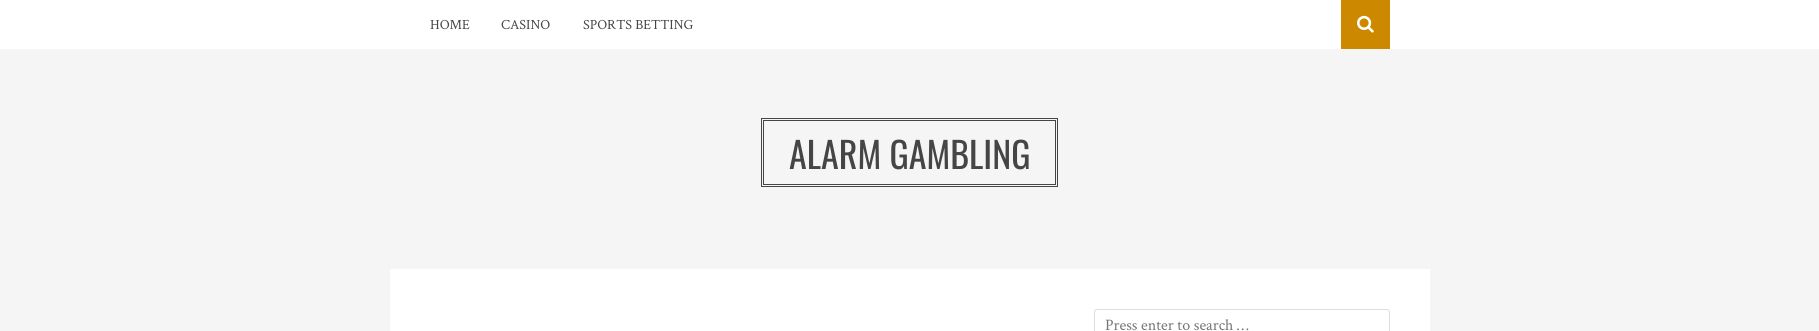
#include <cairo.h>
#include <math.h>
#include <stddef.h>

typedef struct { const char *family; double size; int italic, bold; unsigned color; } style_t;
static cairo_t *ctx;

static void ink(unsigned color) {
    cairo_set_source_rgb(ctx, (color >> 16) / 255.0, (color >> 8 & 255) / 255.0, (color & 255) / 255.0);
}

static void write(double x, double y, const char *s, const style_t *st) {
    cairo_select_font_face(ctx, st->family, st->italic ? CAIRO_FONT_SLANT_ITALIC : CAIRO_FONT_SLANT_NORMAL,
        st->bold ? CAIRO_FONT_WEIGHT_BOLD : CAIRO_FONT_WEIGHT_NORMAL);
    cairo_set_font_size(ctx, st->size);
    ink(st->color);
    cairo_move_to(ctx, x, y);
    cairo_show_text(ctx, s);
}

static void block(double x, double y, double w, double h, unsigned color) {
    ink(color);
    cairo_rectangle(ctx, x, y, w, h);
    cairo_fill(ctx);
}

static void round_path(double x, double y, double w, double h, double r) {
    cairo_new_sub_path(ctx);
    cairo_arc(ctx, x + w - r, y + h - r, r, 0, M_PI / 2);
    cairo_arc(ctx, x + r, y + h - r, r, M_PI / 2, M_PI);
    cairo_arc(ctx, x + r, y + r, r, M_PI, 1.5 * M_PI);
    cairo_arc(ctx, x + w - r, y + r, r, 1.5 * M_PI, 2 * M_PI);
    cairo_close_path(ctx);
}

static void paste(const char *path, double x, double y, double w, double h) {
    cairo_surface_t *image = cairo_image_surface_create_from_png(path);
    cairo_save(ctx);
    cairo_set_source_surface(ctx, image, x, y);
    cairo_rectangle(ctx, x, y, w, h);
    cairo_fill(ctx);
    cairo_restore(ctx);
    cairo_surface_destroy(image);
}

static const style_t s1 = {"Crimson Text", 14, 0, 0, 0x454545};
static const style_t s2 = {"Oswald", 36, 0, 0, 0x454545};
static const style_t s3 = {"Crimson Text", 16, 0, 0, 0x757575};

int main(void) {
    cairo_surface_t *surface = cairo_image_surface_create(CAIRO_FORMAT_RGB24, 1819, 331);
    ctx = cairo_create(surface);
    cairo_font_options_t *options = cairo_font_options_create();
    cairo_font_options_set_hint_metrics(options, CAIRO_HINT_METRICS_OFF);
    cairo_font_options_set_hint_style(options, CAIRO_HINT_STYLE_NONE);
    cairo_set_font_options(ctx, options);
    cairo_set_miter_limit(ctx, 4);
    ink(0xf5f5f5);
    cairo_paint(ctx);
    block(0, 0, 1819, 49, 0xffffff);
    write(430, 29, "HOME", &s1);
    write(501, 29, "CASINO", &s1);
    write(583, 29, "SPORTS BETTING", &s1);
    block(1341, 0, 49, 49, 0xcc8900);
    paste("pic1.png", 1357, 15, 17, 18);
    cairo_rectangle(ctx, 761.5, 118.5, 296, 68);
    ink(0x454545);
    cairo_set_line_width(ctx, 1);
    cairo_stroke(ctx);
    cairo_rectangle(ctx, 763.5, 120.5, 292, 64);
    cairo_stroke(ctx);
    write(789, 169, "ALARM GAMBLING", &s2);
    block(390, 269, 1040, 62, 0xffffff);
    round_path(1094.5, 309.5, 295, 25, 2.5);
    ink(0xdddddd);
    cairo_stroke(ctx);
    write(1105, 330, "Press enter to search …", &s3);
    cairo_surface_write_to_png(surface, "screenshot.png");
    cairo_font_options_destroy(options);
    cairo_destroy(ctx);
    cairo_surface_destroy(surface);
    return 0;
}
